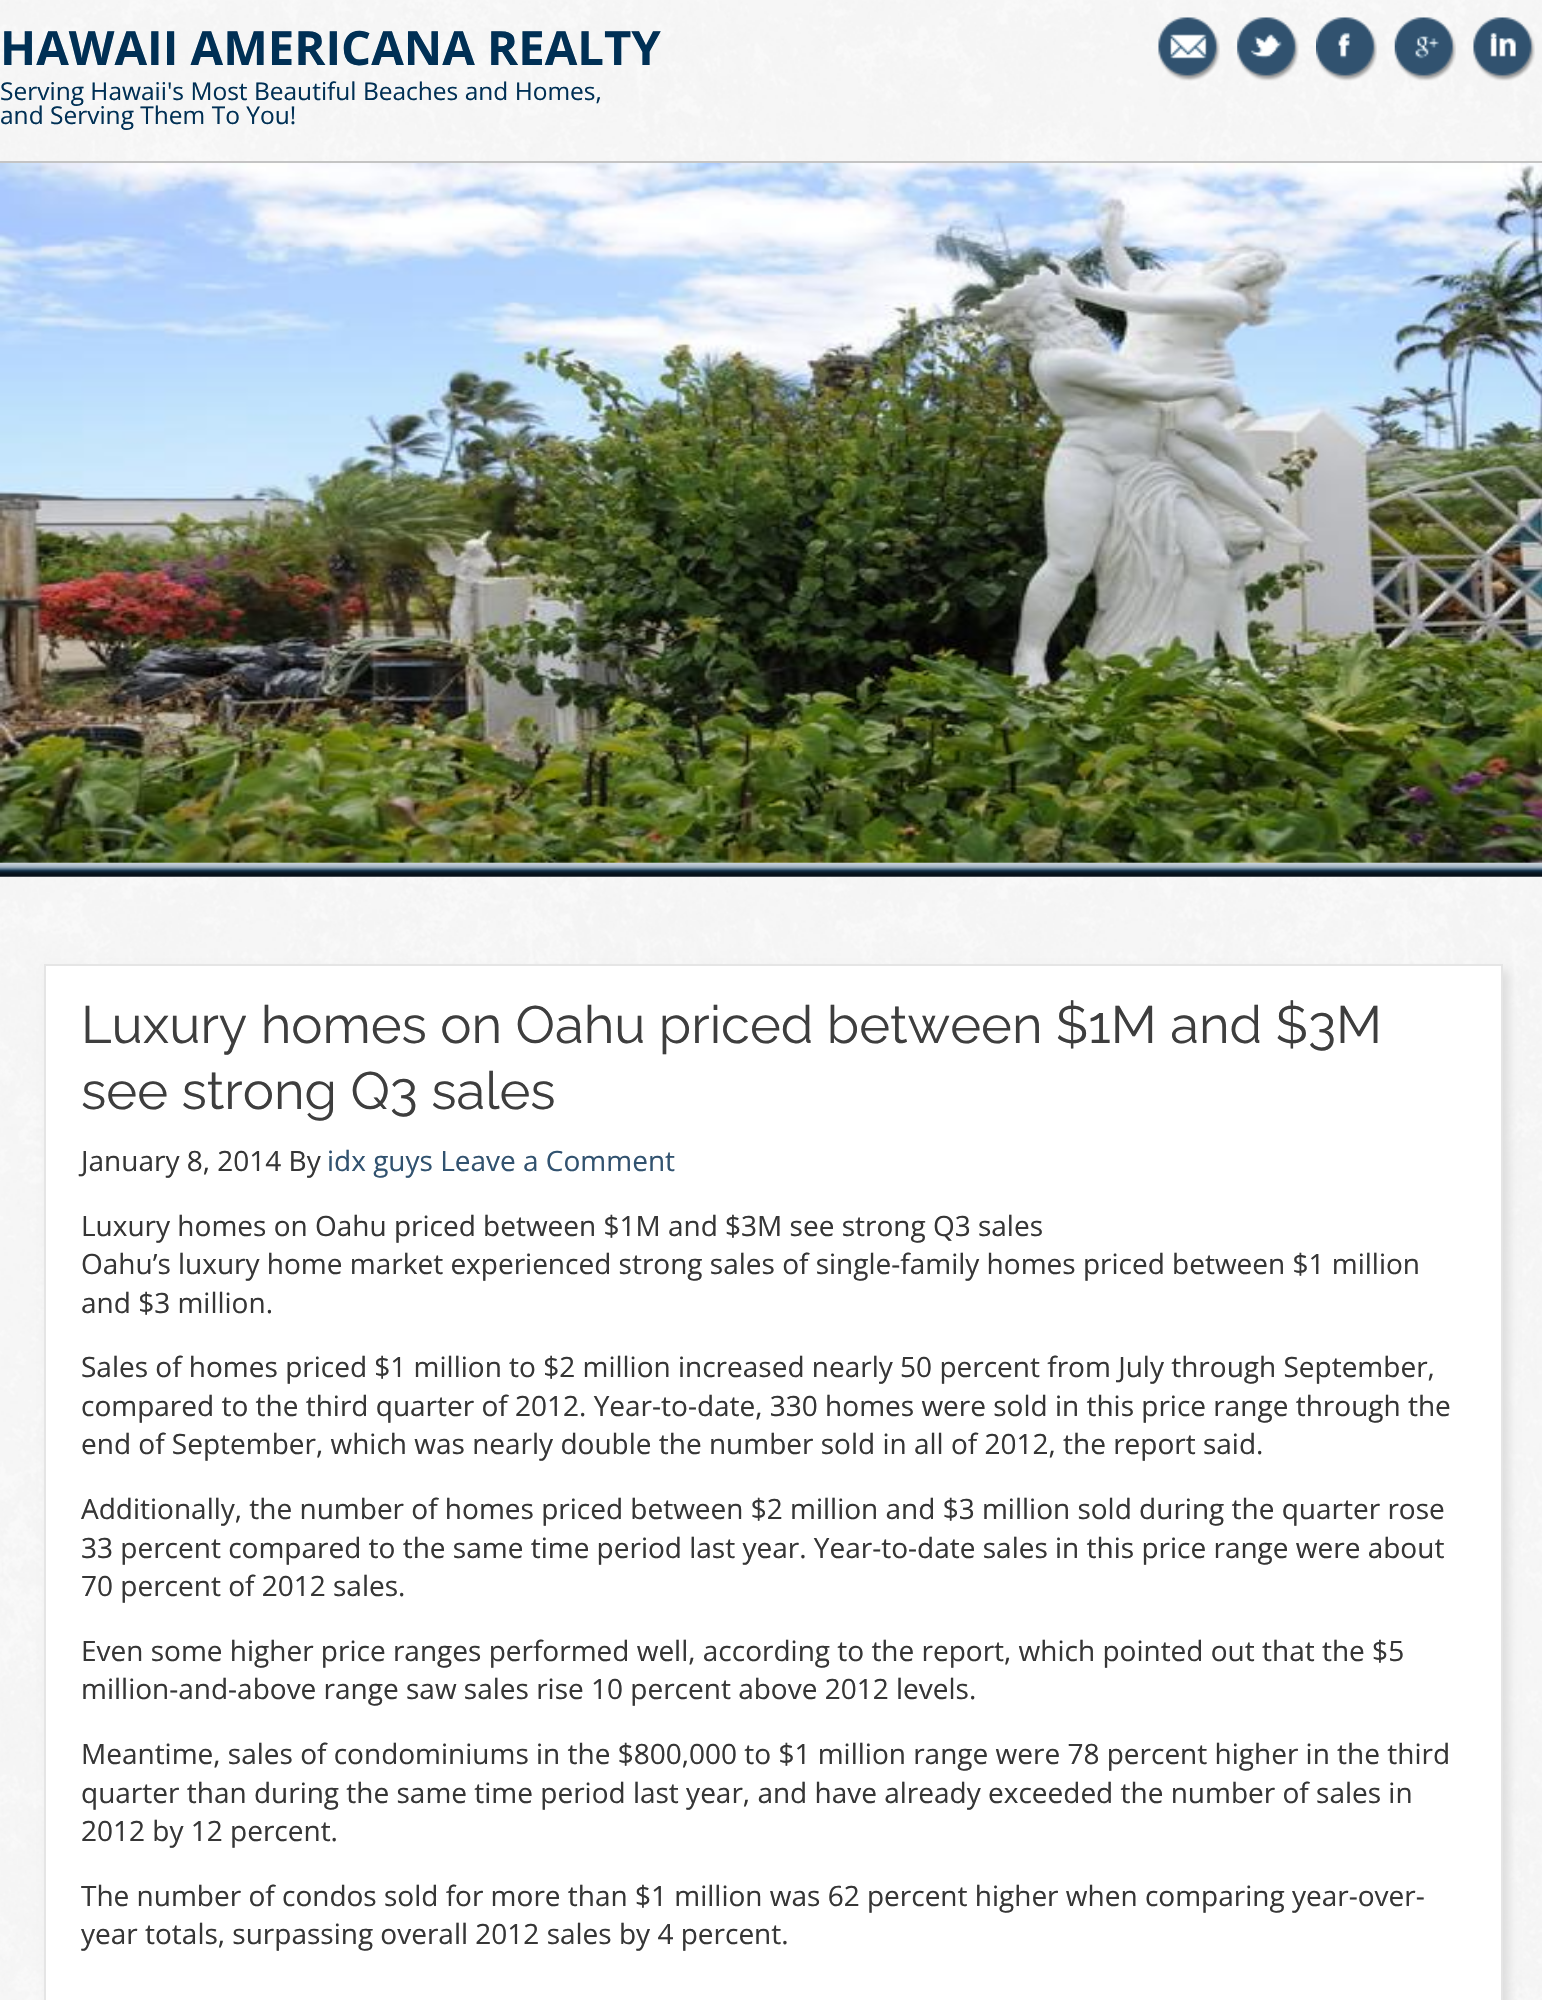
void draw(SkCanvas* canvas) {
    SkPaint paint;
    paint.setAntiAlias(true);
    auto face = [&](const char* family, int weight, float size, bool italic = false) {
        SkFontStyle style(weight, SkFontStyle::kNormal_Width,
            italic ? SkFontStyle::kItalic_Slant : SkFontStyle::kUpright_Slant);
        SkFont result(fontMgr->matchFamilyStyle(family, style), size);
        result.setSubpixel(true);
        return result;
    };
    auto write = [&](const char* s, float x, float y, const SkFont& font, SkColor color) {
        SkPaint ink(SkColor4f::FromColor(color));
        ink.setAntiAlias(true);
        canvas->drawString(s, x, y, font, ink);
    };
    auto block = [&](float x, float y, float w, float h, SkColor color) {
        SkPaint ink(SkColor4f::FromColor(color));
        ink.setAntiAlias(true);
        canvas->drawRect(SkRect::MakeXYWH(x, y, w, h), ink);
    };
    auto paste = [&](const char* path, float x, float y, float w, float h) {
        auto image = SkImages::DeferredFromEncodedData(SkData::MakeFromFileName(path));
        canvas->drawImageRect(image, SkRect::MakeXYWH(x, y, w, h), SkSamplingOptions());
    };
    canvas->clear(SK_ColorWHITE);
    paste("pic1.png", 0, 0, 1542, 2000);
    block(0, 161, 1542, 2, SkColorSetRGB(196, 196, 196));
    auto kFont1 = face("Open Sans", 700, 47.25f);
    write("HAWAII AMERICANA REALTY", 0, 65, kFont1, SkColorSetRGB(0, 48, 85));
    auto kFont2 = face("Open Sans", 400, 24.5f);
    write("Serving Hawaii's Most Beautiful Beaches and Homes,", 0, 100, kFont2, SkColorSetRGB(0, 48, 85));
    write("and Serving Them To You!", 0, 124, kFont2, SkColorSetRGB(0, 48, 85));
    paste("pic2.png", 1158, 17, 62, 64);
    paste("pic3.png", 1237, 17, 62, 64);
    paste("pic4.png", 1316, 17, 61, 64);
    paste("pic5.png", 1394, 17, 62, 64);
    paste("pic6.png", 1473, 17, 62, 64);
    paste("pic7.png", 0, 862, 1542, 15);
    paste("pic8.png", 0, 163, 1542, 700);
    paint.setColor(SkColorSetRGB(222, 222, 222));
    paint.setMaskFilter(SkMaskFilter::MakeBlur(kNormal_SkBlurStyle, 4.5f));
    canvas->drawRect(SkRect::MakeXYWH(49, 971, 1460, 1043), paint);
    paint.setMaskFilter(nullptr);
    paint.setColor(SK_ColorWHITE);
    canvas->drawRect(SkRect::MakeXYWH(45, 965, 1457, 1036), paint);
    paint.setStyle(SkPaint::kStroke_Style);
    paint.setStrokeWidth(2);
    paint.setColor(SkColorSetRGB(229, 229, 229));
    canvas->drawRect(SkRect::MakeXYWH(45, 965, 1457, 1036), paint);
    auto kFont3 = face("Raleway", 400, 52.5f);
    write("Luxury homes on Oahu priced between $1M and $3M", 81, 1043, kFont3, SkColorSetRGB(62, 62, 62));
    write("see strong Q3 sales", 81, 1109, kFont3, SkColorSetRGB(62, 62, 62));
    auto kFont4 = face("Open Sans", 400, 28);
    write("January 8, 2014 By", 81, 1171, kFont4, SkColorSetRGB(54, 54, 54));
    write("idx guys Leave a Comment", 327, 1171, kFont4, SkColorSetRGB(49, 82, 111));
    write("Luxury homes on Oahu priced between $1M and $3M see strong Q3 sales", 81, 1236, kFont4, SkColorSetRGB(54, 54, 54));
    write("Oahu’s luxury home market experienced strong sales of single-family homes priced between $1 million", 81, 1274, kFont4, SkColorSetRGB(54, 54, 54));
    write("and $3 million.", 81, 1313, kFont4, SkColorSetRGB(54, 54, 54));
    write("Sales of homes priced $1 million to $2 million increased nearly 50 percent from July through September,", 81, 1377, kFont4, SkColorSetRGB(54, 54, 54));
    write("compared to the third quarter of 2012. Year-to-date, 330 homes were sold in this price range through the", 81, 1416, kFont4, SkColorSetRGB(54, 54, 54));
    write("end of September, which was nearly double the number sold in all of 2012, the report said.", 81, 1454, kFont4, SkColorSetRGB(54, 54, 54));
    write("Additionally, the number of homes priced between $2 million and $3 million sold during the quarter rose", 81, 1519, kFont4, SkColorSetRGB(54, 54, 54));
    write("33 percent compared to the same time period last year. Year-to-date sales in this price range were about", 81, 1558, kFont4, SkColorSetRGB(54, 54, 54));
    write("70 percent of 2012 sales.", 81, 1596, kFont4, SkColorSetRGB(54, 54, 54));
    write("Even some higher price ranges performed well, according to the report, which pointed out that the $5", 81, 1661, kFont4, SkColorSetRGB(54, 54, 54));
    write("million-and-above range saw sales rise 10 percent above 2012 levels.", 81, 1699, kFont4, SkColorSetRGB(54, 54, 54));
    write("Meantime, sales of condominiums in the $800,000 to $1 million range were 78 percent higher in the third", 81, 1764, kFont4, SkColorSetRGB(54, 54, 54));
    write("quarter than during the same time period last year, and have already exceeded the number of sales in", 81, 1803, kFont4, SkColorSetRGB(54, 54, 54));
    write("2012 by 12 percent.", 81, 1841, kFont4, SkColorSetRGB(54, 54, 54));
    write("The number of condos sold for more than $1 million was 62 percent higher when comparing year-over-", 81, 1906, kFont4, SkColorSetRGB(54, 54, 54));
    canvas->save();
    canvas->clipRect(SkRect::MakeXYWH(81, 1206, 1386, 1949));
    write("year totals, surpassing overall 2012 sales by 4 percent.", 81, 1944, kFont4, SkColorSetRGB(54, 54, 54));
    canvas->restore();
}
